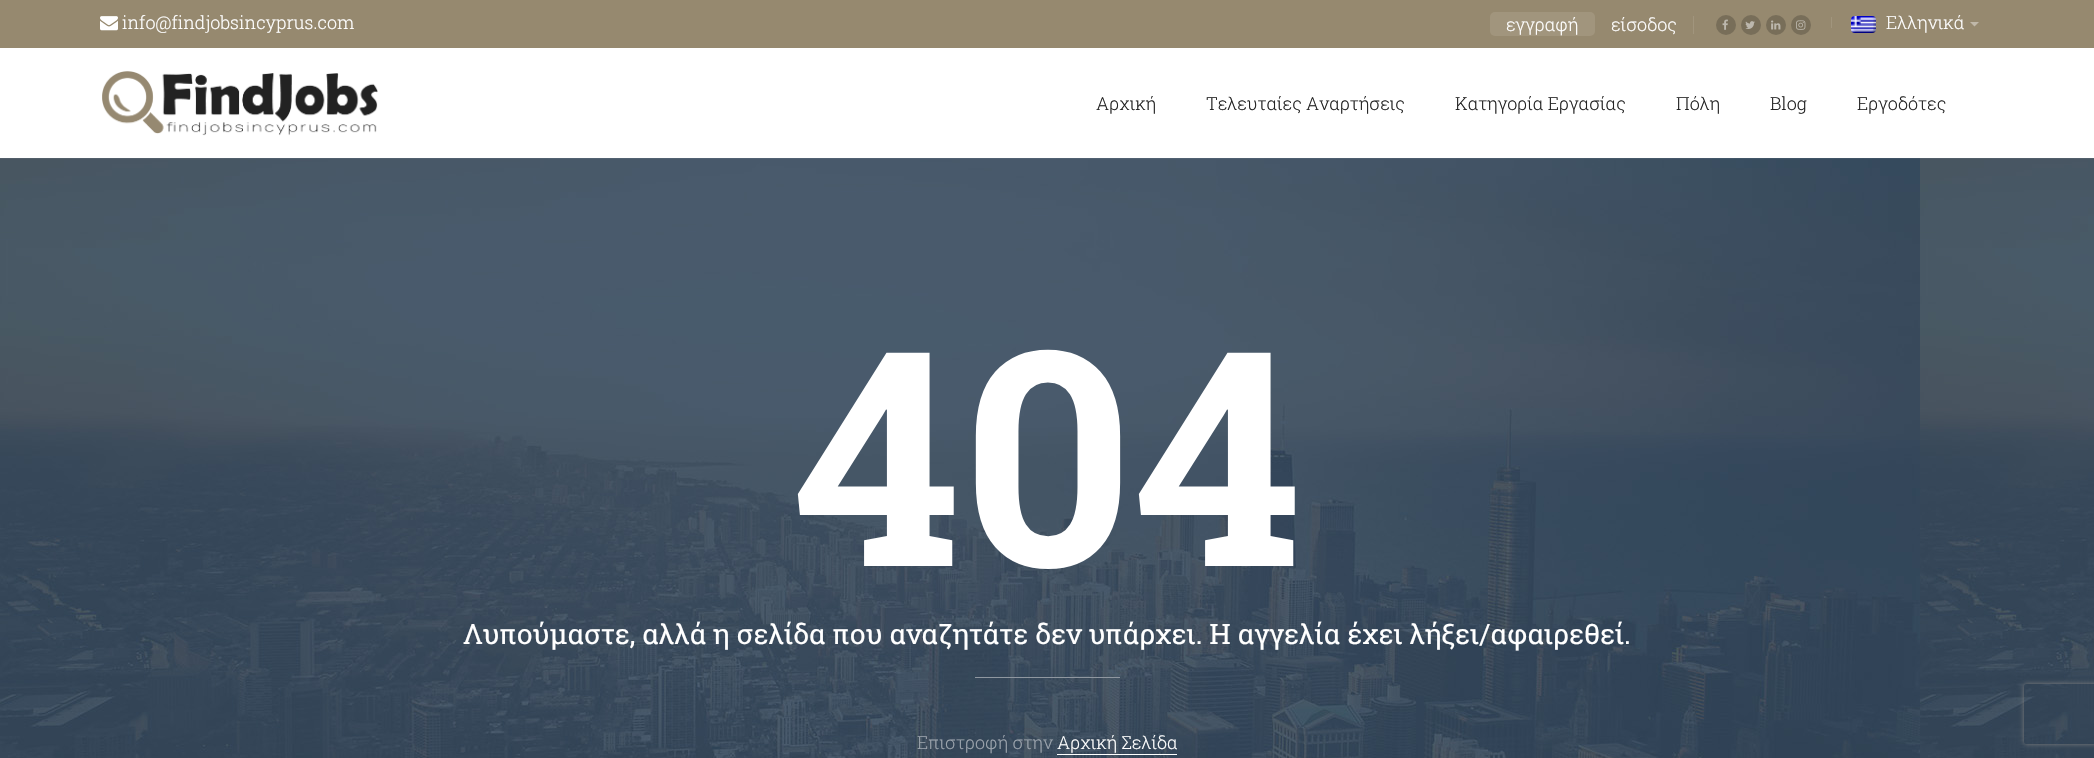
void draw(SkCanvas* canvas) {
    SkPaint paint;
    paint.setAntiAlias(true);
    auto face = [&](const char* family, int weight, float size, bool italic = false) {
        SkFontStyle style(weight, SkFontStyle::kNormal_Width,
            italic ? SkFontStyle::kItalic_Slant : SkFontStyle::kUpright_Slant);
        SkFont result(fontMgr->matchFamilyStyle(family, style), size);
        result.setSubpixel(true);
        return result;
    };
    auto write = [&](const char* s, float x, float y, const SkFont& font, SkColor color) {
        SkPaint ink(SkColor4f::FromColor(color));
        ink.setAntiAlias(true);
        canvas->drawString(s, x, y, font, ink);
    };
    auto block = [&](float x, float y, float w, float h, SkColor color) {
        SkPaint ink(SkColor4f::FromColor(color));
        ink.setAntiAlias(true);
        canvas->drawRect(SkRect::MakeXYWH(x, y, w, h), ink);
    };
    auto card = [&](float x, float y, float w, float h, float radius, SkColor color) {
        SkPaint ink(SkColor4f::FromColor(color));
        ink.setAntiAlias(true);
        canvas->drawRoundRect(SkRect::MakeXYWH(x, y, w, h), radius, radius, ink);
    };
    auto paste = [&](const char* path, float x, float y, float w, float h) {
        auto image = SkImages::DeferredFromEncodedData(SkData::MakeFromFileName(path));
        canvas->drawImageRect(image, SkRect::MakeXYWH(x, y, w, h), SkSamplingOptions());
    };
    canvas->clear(SK_ColorWHITE);
    paste("pic1.png", 0, 158, 2094, 600);
    block(0, 158, 2094, 1, SkColorSetARGB(13, 255, 255, 255));
    block(0, 0, 2094, 48, SkColorSetRGB(150, 137, 111));
    paste("pic2.png", 100, 16, 18, 15);
    auto kFont1 = face("Roboto Slab", 300, 18);
    write("info@findjobsincyprus.com", 122, 29, kFont1, SK_ColorWHITE);
    card(1490, 12, 105, 24, 5, SkColorSetRGB(161, 149, 125));
    write("εγγραφή", 1506, 31, kFont1, SK_ColorWHITE);
    write("είσοδος", 1611, 31, kFont1, SK_ColorWHITE);
    block(1693, 16, 1, 18, SkColorSetRGB(161, 149, 125));
    paint.setColor(SkColorSetRGB(120, 110, 89));
    canvas->drawCircle(1726, 25, 10, paint);
    paste("pic3.png", 1722, 19, 6, 11);
    canvas->drawCircle(1751, 25, 10, paint);
    paste("pic4.png", 1745, 21, 10, 8);
    canvas->drawCircle(1776, 25, 10, paint);
    paste("pic5.png", 1771, 20, 10, 10);
    canvas->drawCircle(1801, 25, 10, paint);
    paste("pic6.png", 1796, 20, 10, 10);
    block(1831, 17, 1, 11, SkColorSetRGB(161, 149, 125));
    paste("pic7.png", 1851, 16, 25, 17);
    write("Ελληνικά", 1886, 29, kFont1, SK_ColorWHITE);
    paint.setColor(SkColorSetRGB(192, 184, 169));
    canvas->drawPath(SkPathBuilder().moveTo(1970, 22).lineTo(1979, 22).lineTo(1974.5f, 26.5f).close().detach(), paint);
    paste("pic8.png", 102, 71, 276, 65);
    write("Αρχική", 1096, 110, kFont1, SkColorSetRGB(35, 35, 35));
    write("Τελευταίες Αναρτήσεις", 1206, 110, kFont1, SkColorSetRGB(35, 35, 35));
    write("Κατηγορία Εργασίας", 1455, 110, kFont1, SkColorSetRGB(35, 35, 35));
    write("Πόλη", 1676, 110, kFont1, SkColorSetRGB(35, 35, 35));
    write("Blog", 1770, 110, kFont1, SkColorSetRGB(35, 35, 35));
    write("Εργοδότες", 1857, 110, kFont1, SkColorSetRGB(35, 35, 35));
    auto kFont2 = face("Roboto Slab", 700, 300);
    write("404", 792, 566, kFont2, SK_ColorWHITE);
    auto kFont3 = face("Roboto Slab", 400, 28);
    write("Λυπούμαστε, αλλά η σελίδα που αναζητάτε δεν υπάρχει. Η αγγελία έχει λήξει/αφαιρεθεί.", 463, 644, kFont3, SK_ColorWHITE);
    block(975, 677, 145, 1, SkColorSetRGB(143, 151, 160));
    write("Επιστροφή στην", 917, 749, kFont1, SkColorSetRGB(156, 164, 173));
    write("Αρχική Σελίδα", 1057, 749, kFont1, SK_ColorWHITE);
    block(1057, 754, 120, 1, SK_ColorWHITE);
    canvas->save();
    canvas->clipPath(SkPathBuilder(SkPathFillType::kEvenOdd).moveTo(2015, 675).lineTo(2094, 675).lineTo(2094, 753).lineTo(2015, 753).close().moveTo(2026, 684).lineTo(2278, 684).cubicTo(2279, 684, 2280, 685, 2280, 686).lineTo(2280, 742).cubicTo(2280, 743, 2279, 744, 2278, 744).lineTo(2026, 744).cubicTo(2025, 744, 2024, 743, 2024, 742).lineTo(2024, 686).cubicTo(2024, 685, 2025, 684, 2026, 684).close().detach(), true);
    paint.setColor(SkColorSetRGB(128, 128, 128));
    paint.setMaskFilter(SkMaskFilter::MakeBlur(kNormal_SkBlurStyle, 2.5f));
    canvas->drawRoundRect(SkRect::MakeXYWH(2024, 684, 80, 60), 2, 2, paint);
    paint.setMaskFilter(nullptr);
    canvas->restore();
}
